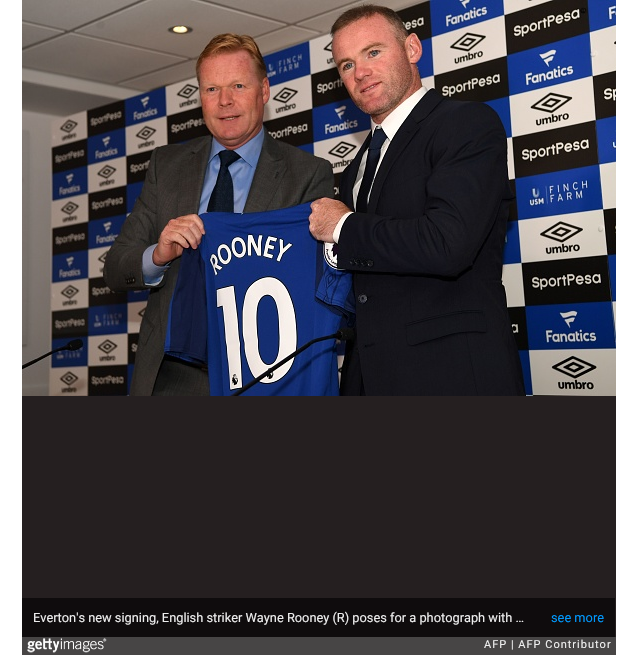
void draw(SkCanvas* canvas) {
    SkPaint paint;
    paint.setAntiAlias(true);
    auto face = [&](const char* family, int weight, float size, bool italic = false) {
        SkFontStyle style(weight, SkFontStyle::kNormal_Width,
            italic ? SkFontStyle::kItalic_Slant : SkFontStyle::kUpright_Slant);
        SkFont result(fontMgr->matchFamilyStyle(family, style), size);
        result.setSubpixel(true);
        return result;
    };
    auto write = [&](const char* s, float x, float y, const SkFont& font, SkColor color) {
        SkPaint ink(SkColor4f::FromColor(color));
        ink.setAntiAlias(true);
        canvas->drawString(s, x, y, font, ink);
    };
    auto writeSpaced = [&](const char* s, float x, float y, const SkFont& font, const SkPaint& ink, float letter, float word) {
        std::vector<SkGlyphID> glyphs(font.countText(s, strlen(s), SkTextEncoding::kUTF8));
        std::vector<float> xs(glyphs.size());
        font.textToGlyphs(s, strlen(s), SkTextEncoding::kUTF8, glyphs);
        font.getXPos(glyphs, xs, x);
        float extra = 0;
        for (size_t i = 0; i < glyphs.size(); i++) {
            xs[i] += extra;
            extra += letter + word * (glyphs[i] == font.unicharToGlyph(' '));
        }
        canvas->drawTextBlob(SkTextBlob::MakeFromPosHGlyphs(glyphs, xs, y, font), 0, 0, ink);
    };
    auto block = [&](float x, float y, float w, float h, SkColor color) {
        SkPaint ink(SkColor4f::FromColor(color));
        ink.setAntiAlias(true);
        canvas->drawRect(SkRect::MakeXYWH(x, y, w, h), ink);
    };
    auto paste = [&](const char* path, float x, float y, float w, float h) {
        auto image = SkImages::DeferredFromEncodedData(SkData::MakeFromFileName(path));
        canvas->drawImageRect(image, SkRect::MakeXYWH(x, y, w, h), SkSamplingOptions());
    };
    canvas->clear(SK_ColorWHITE);
    block(22, 396, 594, 241, SkColorSetRGB(37, 31, 32));
    paste("pic1.png", 22, 0, 594, 396);
    block(22, 598, 593, 39, SkColorSetRGB(15, 12, 13));
    auto kFont1 = face("Roboto", 400, 12.8f);
    write("Everton's new signing, English striker Wayne Rooney (R) poses for a photograph with …", 33, 622, kFont1, SkColorSetRGB(238, 238, 238));
    write("see more", 551, 622, kFont1, SkColorSetRGB(0, 153, 255));
    block(22, 637, 594, 18, SkColorSetRGB(71, 69, 69));
    paste("pic2.png", 27, 638, 80, 15);
    auto kFont2 = face("Roboto", 400, 11);
    paint.setColor(SkColorSetRGB(238, 238, 238));
    writeSpaced("AFP | AFP Contributor", 484, 648, kFont2, paint, 1, 0);
}
